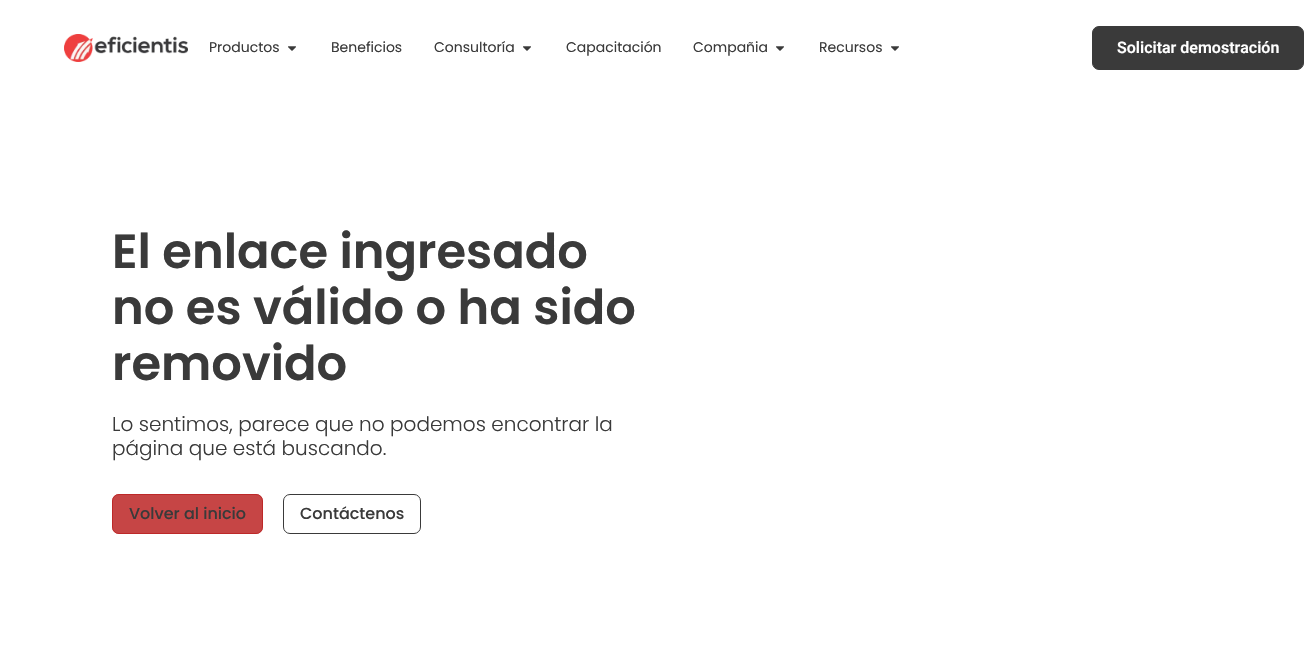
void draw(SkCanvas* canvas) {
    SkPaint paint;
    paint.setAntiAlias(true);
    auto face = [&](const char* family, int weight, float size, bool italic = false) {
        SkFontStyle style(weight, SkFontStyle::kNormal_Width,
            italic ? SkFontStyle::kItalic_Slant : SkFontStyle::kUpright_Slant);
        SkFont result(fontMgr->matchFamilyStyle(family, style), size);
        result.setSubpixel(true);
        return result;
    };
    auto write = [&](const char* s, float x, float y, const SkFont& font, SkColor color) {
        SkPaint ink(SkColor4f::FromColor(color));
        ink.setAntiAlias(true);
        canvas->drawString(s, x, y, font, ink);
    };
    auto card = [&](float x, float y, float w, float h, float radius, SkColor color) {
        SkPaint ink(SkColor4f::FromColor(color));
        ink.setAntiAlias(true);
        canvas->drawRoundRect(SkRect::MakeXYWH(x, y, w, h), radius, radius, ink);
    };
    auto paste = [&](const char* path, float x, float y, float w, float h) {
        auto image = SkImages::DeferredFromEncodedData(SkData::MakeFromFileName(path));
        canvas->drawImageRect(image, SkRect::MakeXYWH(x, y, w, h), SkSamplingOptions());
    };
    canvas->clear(SK_ColorWHITE);
    paste("pic1.png", 64, 34, 124, 28);
    auto kFont1 = face("Poppins", 400, 14);
    write("Productos", 209, 52, kFont1, SkColorSetRGB(58, 58, 58));
    paste("pic2.png", 288, 46, 8, 5);
    write("Beneficios", 331, 52, kFont1, SkColorSetRGB(58, 58, 58));
    write("Consultoría", 434, 52, kFont1, SkColorSetRGB(58, 58, 58));
    paste("pic2.png", 523, 46, 8, 5);
    write("Capacitación", 566, 52, kFont1, SkColorSetRGB(58, 58, 58));
    write("Compañia", 693, 52, kFont1, SkColorSetRGB(58, 58, 58));
    paste("pic2.png", 776, 46, 8, 5);
    write("Recursos", 819, 52, kFont1, SkColorSetRGB(58, 58, 58));
    paste("pic2.png", 891, 46, 8, 5);
    paint.setColor(SkColorSetRGB(58, 58, 58));
    canvas->drawRoundRect(SkRect::MakeXYWH(1092.5f, 26.5f, 211, 43), 6.5f, 6.5f, paint);
    paint.setStyle(SkPaint::kStroke_Style);
    paint.setStrokeWidth(1);
    canvas->drawRoundRect(SkRect::MakeXYWH(1092.5f, 26.5f, 211, 43), 6.5f, 6.5f, paint);
    auto kFont2 = face("Roboto", 600, 16);
    write("Solicitar demostración", 1117, 53, kFont2, SK_ColorWHITE);
    auto kFont3 = face("Poppins", 600, 48);
    write("El enlace ingresado", 112, 268, kFont3, SkColorSetRGB(58, 58, 58));
    write("no es válido o ha sido", 112, 324, kFont3, SkColorSetRGB(58, 58, 58));
    write("removido", 112, 380, kFont3, SkColorSetRGB(58, 58, 58));
    auto kFont4 = face("Poppins", 300, 20);
    write("Lo sentimos, parece que no podemos encontrar la", 112, 431, kFont4, SkColorSetRGB(58, 58, 58));
    write("página que está buscando.", 112, 455, kFont4, SkColorSetRGB(58, 58, 58));
    card(112, 494, 151, 40, 7, SkColorSetRGB(198, 69, 69));
    paint.setColor(SkColorSetARGB(214, 187, 34, 34));
    canvas->drawRoundRect(SkRect::MakeXYWH(112.5f, 494.5f, 150, 39), 6.5f, 6.5f, paint);
    auto kFont5 = face("Poppins", 500, 16);
    write("Volver al inicio", 129, 519, kFont5, SkColorSetRGB(58, 58, 58));
    paint.setColor(SkColorSetRGB(58, 58, 58));
    canvas->drawRoundRect(SkRect::MakeXYWH(283.5f, 494.5f, 137, 39), 6.5f, 6.5f, paint);
    write("Contáctenos", 300, 519, kFont5, SkColorSetRGB(58, 58, 58));
}
